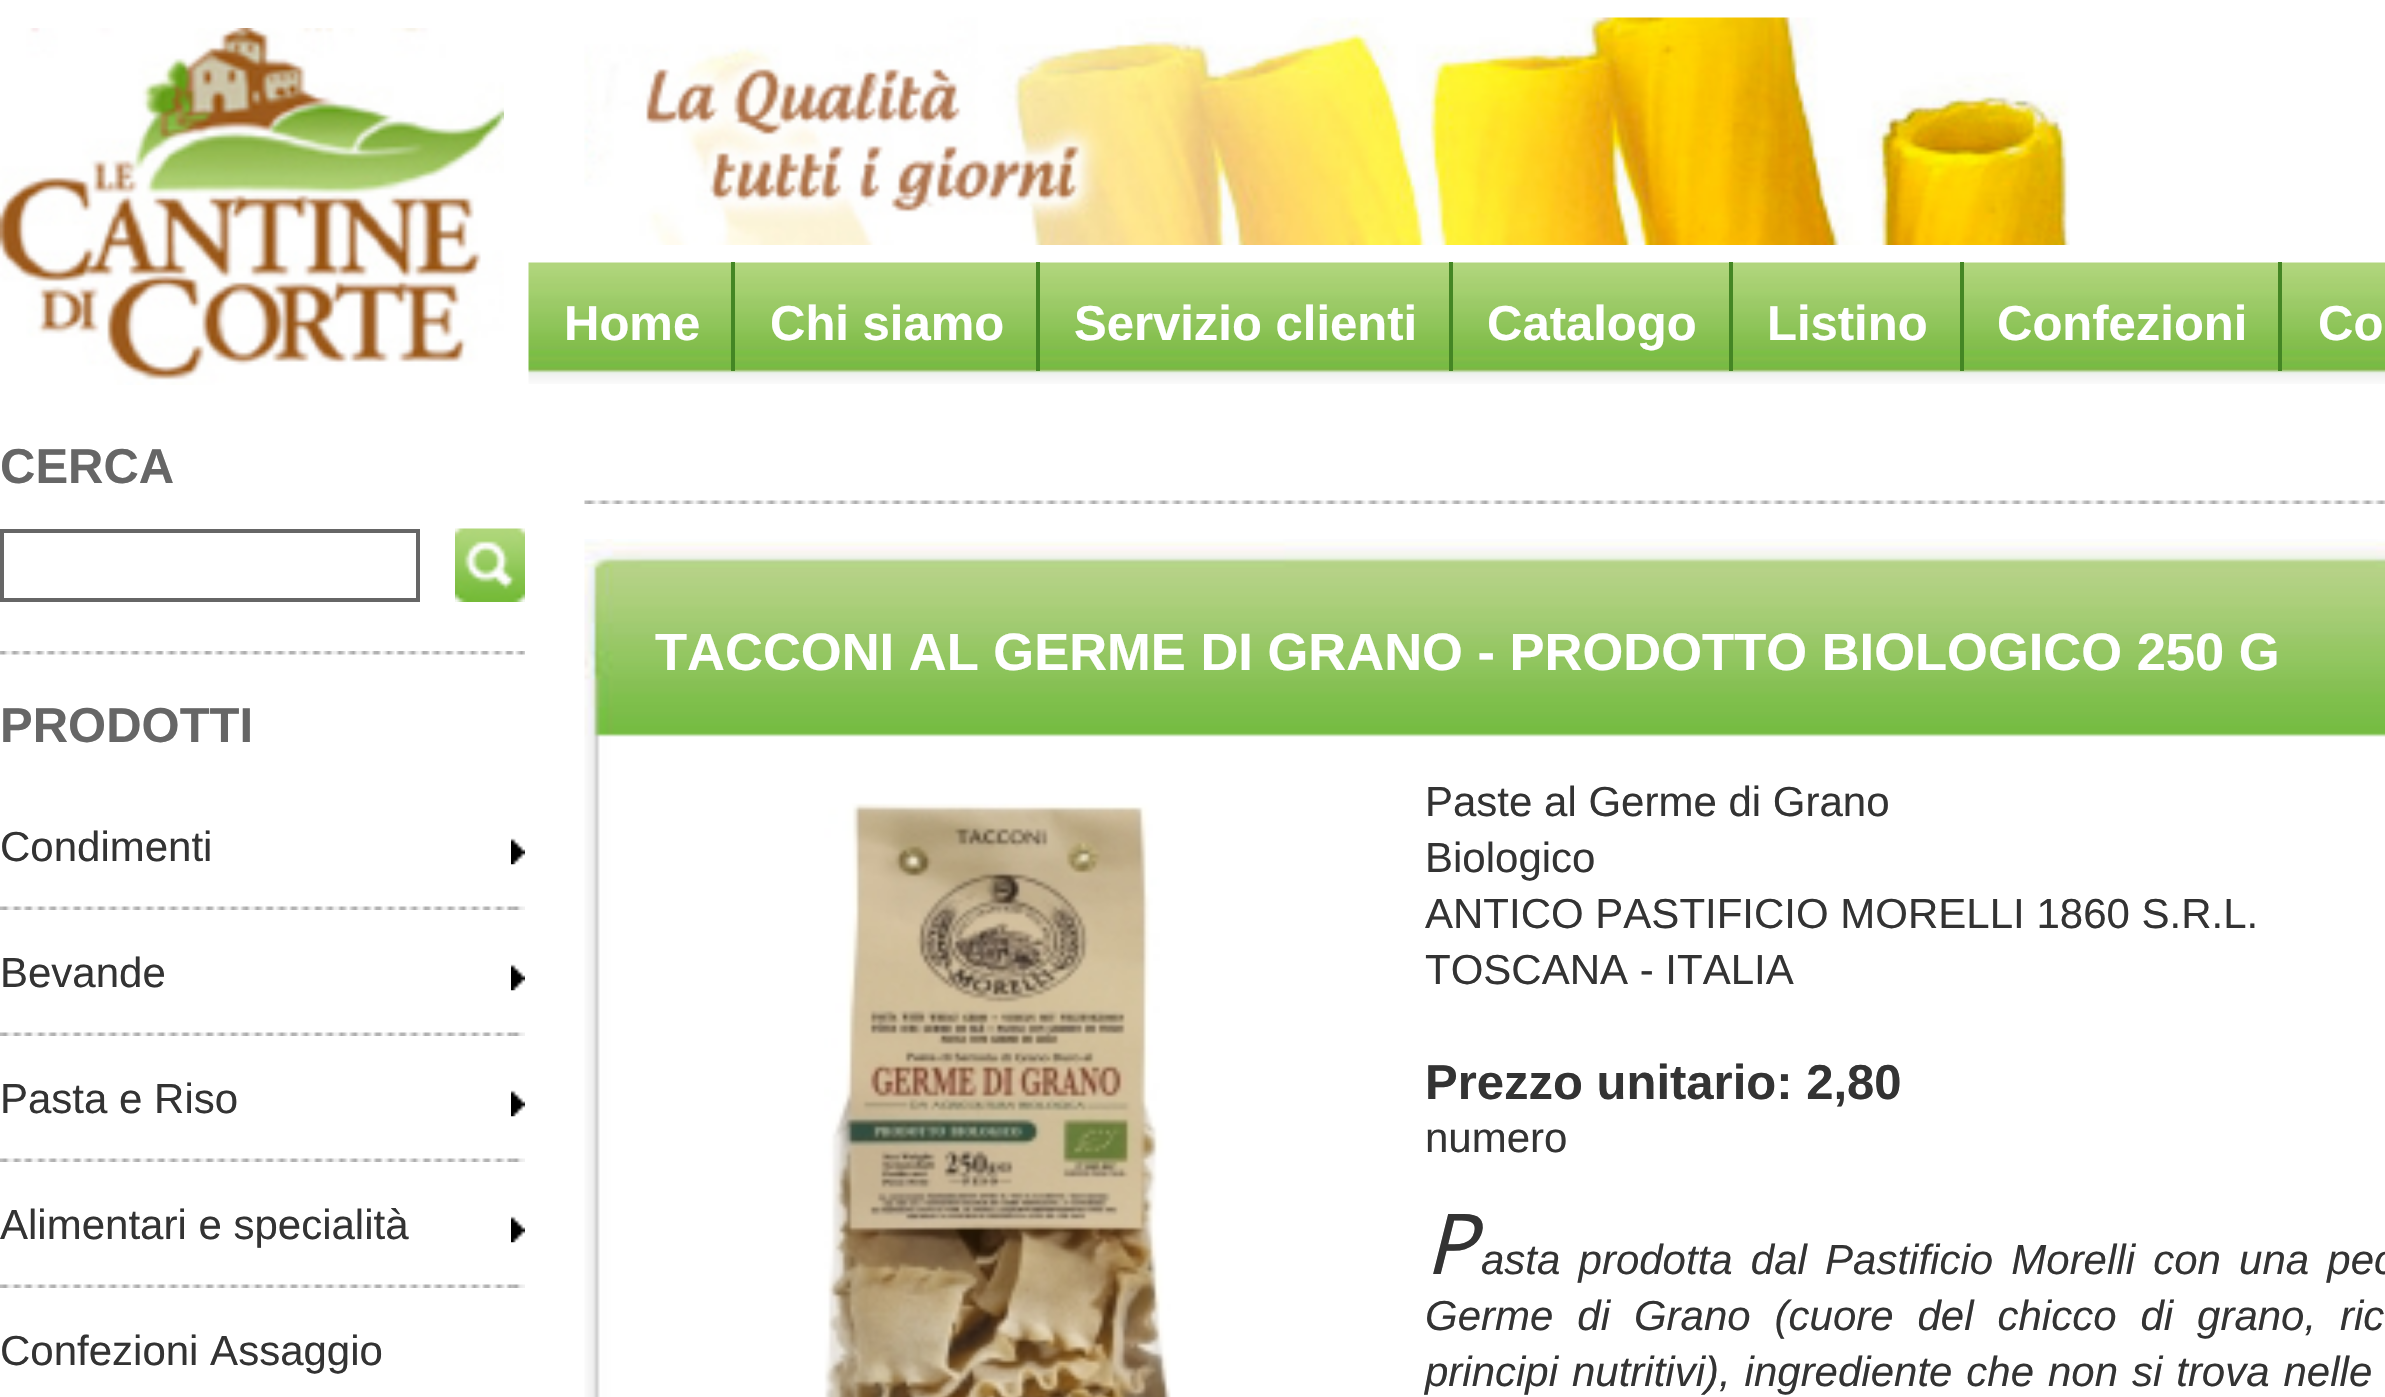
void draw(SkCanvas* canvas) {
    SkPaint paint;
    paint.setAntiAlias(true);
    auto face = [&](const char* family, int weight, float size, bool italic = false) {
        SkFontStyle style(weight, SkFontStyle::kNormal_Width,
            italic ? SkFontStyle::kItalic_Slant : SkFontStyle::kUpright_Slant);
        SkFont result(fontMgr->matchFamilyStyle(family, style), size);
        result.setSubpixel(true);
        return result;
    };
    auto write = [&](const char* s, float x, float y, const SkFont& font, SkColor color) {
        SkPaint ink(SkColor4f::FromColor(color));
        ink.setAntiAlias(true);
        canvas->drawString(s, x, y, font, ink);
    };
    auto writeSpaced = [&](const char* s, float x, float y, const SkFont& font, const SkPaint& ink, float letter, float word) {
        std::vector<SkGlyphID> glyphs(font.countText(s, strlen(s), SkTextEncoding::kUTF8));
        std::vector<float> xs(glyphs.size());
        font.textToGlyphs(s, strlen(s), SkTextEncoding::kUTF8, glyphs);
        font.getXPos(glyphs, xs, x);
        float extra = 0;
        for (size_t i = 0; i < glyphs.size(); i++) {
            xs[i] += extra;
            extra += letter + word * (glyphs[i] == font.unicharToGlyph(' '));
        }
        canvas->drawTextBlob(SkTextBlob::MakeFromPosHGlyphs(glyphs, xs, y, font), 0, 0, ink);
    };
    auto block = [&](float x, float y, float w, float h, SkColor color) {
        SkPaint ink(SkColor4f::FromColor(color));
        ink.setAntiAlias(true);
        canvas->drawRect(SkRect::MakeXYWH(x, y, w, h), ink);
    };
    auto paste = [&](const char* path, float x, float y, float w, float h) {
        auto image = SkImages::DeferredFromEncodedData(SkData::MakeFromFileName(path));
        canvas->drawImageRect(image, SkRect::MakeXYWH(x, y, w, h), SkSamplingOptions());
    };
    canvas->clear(SK_ColorWHITE);
    paste("pic1.png", 0, 28, 504, 357);
    paste("pic2.png", 584, 17, 1486, 228);
    paste("pic3.png", 528, 262, 1857, 122);
    block(731, 262, 4, 109, SkColorSetRGB(68, 134, 36));
    auto kFont1 = face("Liberation Sans", 700, 49);
    write("Home", 564, 340, kFont1, SK_ColorWHITE);
    block(1036, 262, 4, 109, SkColorSetRGB(68, 134, 36));
    write("Chi siamo", 770, 340, kFont1, SK_ColorWHITE);
    block(1449, 262, 4, 109, SkColorSetRGB(68, 134, 36));
    write("Servizio clienti", 1074, 340, kFont1, SK_ColorWHITE);
    block(1729, 262, 4, 109, SkColorSetRGB(68, 134, 36));
    write("Catalogo", 1487, 340, kFont1, SK_ColorWHITE);
    block(1960, 262, 4, 109, SkColorSetRGB(68, 134, 36));
    write("Listino", 1767, 340, kFont1, SK_ColorWHITE);
    block(2278, 262, 4, 109, SkColorSetRGB(68, 134, 36));
    write("Confezioni", 1997, 340, kFont1, SK_ColorWHITE);
    write("Co", 2318, 340, kFont1, SK_ColorWHITE);
    write("CERCA", 0, 483, kFont1, SkColorSetRGB(102, 102, 102));
    paint.setStyle(SkPaint::kStroke_Style);
    paint.setStrokeWidth(4);
    paint.setColor(SkColorSetRGB(102, 102, 102));
    canvas->drawRect(SkRect::MakeXYWH(2, 531, 416, 69), paint);
    paste("pic4.png", 455, 528, 70, 74);
    paste("pic5.png", 0, 651, 525, 4);
    write("PRODOTTI", 0, 742, kFont1, SkColorSetRGB(102, 102, 102));
    paste("pic6.png", 0, 906, 511, 4);
    auto kFont2 = face("Liberation Sans", 400, 42);
    write("Condimenti", 0, 861, kFont2, SkColorSetRGB(51, 51, 51));
    paste("pic7.png", 511, 906, 14, 4);
    paste("pic8.png", 511, 838, 14, 27);
    paste("pic6.png", 0, 1032, 511, 4);
    write("Bevande", 0, 987, kFont2, SkColorSetRGB(51, 51, 51));
    paste("pic7.png", 511, 1032, 14, 4);
    paste("pic8.png", 511, 964, 14, 27);
    paste("pic6.png", 0, 1158, 511, 4);
    write("Pasta e Riso", 0, 1113, kFont2, SkColorSetRGB(51, 51, 51));
    paste("pic7.png", 511, 1158, 14, 4);
    paste("pic8.png", 511, 1090, 14, 27);
    paste("pic6.png", 0, 1284, 511, 4);
    write("Alimentari e specialità", 0, 1239, kFont2, SkColorSetRGB(51, 51, 51));
    paste("pic7.png", 511, 1284, 14, 4);
    paste("pic8.png", 511, 1216, 14, 27);
    write("Confezioni Assaggio", 0, 1365, kFont2, SkColorSetRGB(51, 51, 51));
    paste("pic9.png", 584, 500, 1801, 4);
    paste("pic10.png", 584, 539, 1801, 858);
    auto kFont3 = face("Liberation Sans", 700, 52.5f);
    write("TACCONI AL GERME DI GRANO - PRODOTTO BIOLOGICO 250 G", 655, 670, kFont3, SK_ColorWHITE);
    paste("pic11.png", 824, 803, 347, 594);
    write("Paste al Germe di Grano", 1425, 816, kFont2, SkColorSetRGB(51, 51, 51));
    write("Biologico", 1425, 872, kFont2, SkColorSetRGB(51, 51, 51));
    write("ANTICO PASTIFICIO MORELLI 1860 S.R.L.", 1425, 928, kFont2, SkColorSetRGB(51, 51, 51));
    write("TOSCANA - ITALIA", 1425, 984, kFont2, SkColorSetRGB(51, 51, 51));
    write("Prezzo unitario: 2,80", 1425, 1099, kFont1, SkColorSetRGB(51, 51, 51));
    write("numero", 1425, 1152, kFont2, SkColorSetRGB(51, 51, 51));
    auto kFont4 = face("Noto Sans", 400, 84, true);
    write("P", 1425, 1274, kFont4, SkColorSetRGB(51, 51, 51));
    auto kFont5 = face("Liberation Sans", 400, 42, true);
    paint.setStyle(SkPaint::kFill_Style);
    paint.setColor(SkColorSetRGB(51, 51, 51));
    writeSpaced("asta prodotta dal Pastificio Morelli con una pec", 1481, 1274, kFont5, paint, 0, 6.5f);
    writeSpaced("Germe di Grano (cuore del chicco di grano, ric", 1425, 1330, kFont5, paint, 0, 12.25f);
    writeSpaced("principi nutritivi), ingrediente che non si trova nelle", 1425, 1386, kFont5, paint, 0, 2.25f);
}
